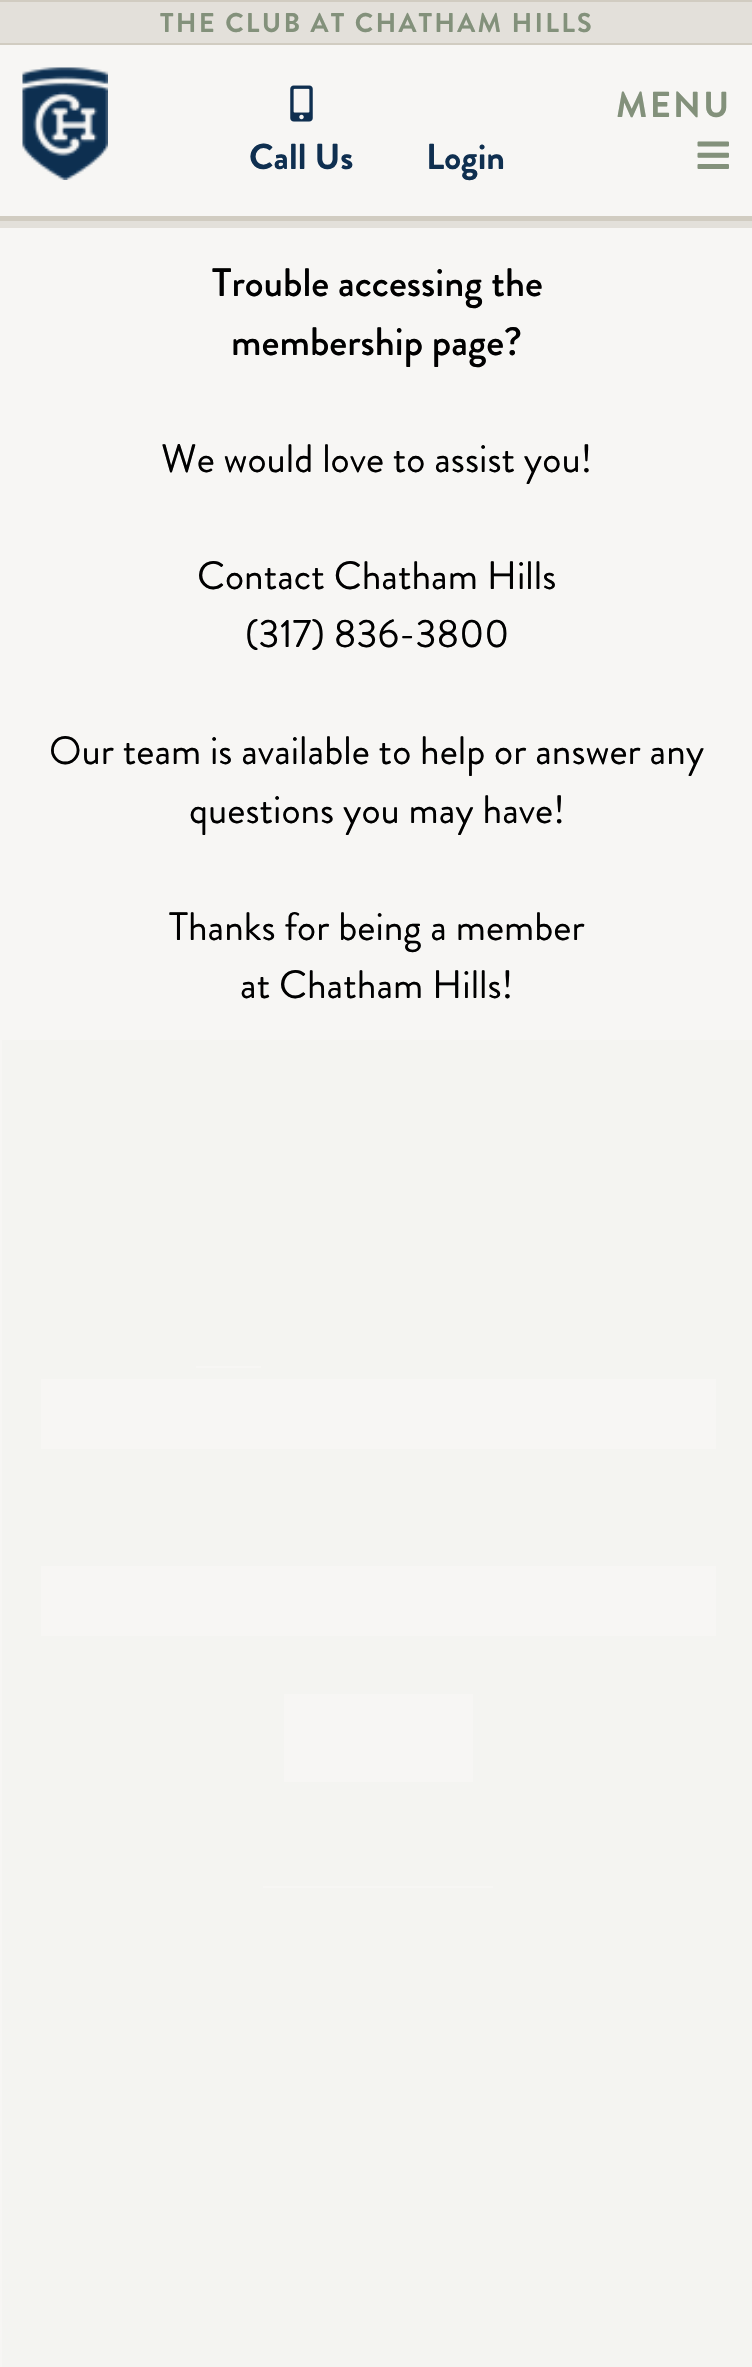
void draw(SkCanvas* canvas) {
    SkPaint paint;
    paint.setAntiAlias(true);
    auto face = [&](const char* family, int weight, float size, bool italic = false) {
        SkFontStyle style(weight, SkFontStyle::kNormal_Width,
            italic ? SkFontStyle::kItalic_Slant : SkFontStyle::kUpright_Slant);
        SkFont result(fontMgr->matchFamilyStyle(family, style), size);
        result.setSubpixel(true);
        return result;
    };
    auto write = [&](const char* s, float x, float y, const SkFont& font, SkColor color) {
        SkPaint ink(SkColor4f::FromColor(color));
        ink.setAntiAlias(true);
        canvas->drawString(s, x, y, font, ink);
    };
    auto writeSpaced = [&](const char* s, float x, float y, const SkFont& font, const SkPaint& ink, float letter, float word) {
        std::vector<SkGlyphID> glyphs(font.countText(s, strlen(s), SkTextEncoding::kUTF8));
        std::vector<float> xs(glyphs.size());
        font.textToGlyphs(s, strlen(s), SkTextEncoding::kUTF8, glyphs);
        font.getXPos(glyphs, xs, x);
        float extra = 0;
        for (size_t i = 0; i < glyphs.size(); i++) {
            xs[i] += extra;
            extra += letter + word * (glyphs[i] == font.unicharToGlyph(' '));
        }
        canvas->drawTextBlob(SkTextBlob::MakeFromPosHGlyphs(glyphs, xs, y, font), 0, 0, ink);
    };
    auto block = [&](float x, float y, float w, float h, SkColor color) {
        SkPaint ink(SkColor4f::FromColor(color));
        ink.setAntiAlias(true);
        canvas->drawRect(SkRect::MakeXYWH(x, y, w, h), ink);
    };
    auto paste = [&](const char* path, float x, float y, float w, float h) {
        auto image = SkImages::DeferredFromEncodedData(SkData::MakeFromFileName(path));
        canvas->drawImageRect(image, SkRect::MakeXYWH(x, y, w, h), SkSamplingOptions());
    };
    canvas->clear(SkColorSetRGB(227, 224, 218));
    block(0, 0, 752, 2, SkColorSetRGB(209, 204, 193));
    block(0, 43, 752, 2, SkColorSetRGB(209, 204, 193));
    auto kFont1 = face("Brandon Grotesque", 700, 27);
    paint.setColor(SkColorSetRGB(131, 145, 123));
    writeSpaced("THE CLUB AT CHATHAM HILLS", 160, 32, kFont1, paint, 2.25f, 0);
    block(0, 45, 752, 171, SkColorSetRGB(247, 246, 244));
    block(0, 216, 752, 5, SkColorSetRGB(209, 204, 193));
    paste("pic1.png", 22, 67, 86, 113);
    auto kFont2 = face("Brandon Grotesque", 700, 36);
    writeSpaced("MENU", 616, 117, kFont2, paint, 2.25f, 0);
    paste("pic2.png", 697, 141, 32, 28);
    paste("pic3.png", 290, 85, 23, 37);
    write("Call Us", 249, 169, kFont2, SkColorSetRGB(15, 47, 80));
    write("Login", 426, 169, kFont2, SkColorSetRGB(15, 47, 80));
    block(0, 228, 752, 812, SkColorSetRGB(247, 246, 244));
    auto kFont3 = face("Brandon Grotesque", 500, 39.6f);
    write("Trouble accessing the", 212, 296, kFont3, SK_ColorBLACK);
    write("membership page?", 231, 355, kFont3, SK_ColorBLACK);
    auto kFont4 = face("Brandon Grotesque", 400, 39.6f);
    write("We would love to assist you!", 161, 472, kFont4, SK_ColorBLACK);
    write("Contact Chatham Hills", 197, 589, kFont4, SK_ColorBLACK);
    write("(317) 836-3800", 245, 647, kFont4, SK_ColorBLACK);
    write("Our team is available to help or answer any", 49, 764, kFont4, SK_ColorBLACK);
    write("questions you may have!", 189, 823, kFont4, SK_ColorBLACK);
    write("Thanks for being a member", 169, 940, kFont4, SK_ColorBLACK);
    write("at Chatham Hills!", 240, 998, kFont4, SK_ColorBLACK);
    block(2, 1040, 750, 1327, SkColorSetRGB(244, 244, 241));
    block(0, 1040, 2, 1327, SkColorSetRGB(247, 246, 244));
    block(196, 1366, 65, 2, SkColorSetRGB(247, 246, 244));
    block(41, 1379, 675, 70, SkColorSetRGB(247, 246, 244));
    block(41, 1566, 675, 70, SkColorSetRGB(247, 246, 244));
    block(284, 1694, 189, 88, SkColorSetRGB(247, 246, 244));
    block(263, 1886, 230, 2, SkColorSetRGB(247, 246, 244));
}
